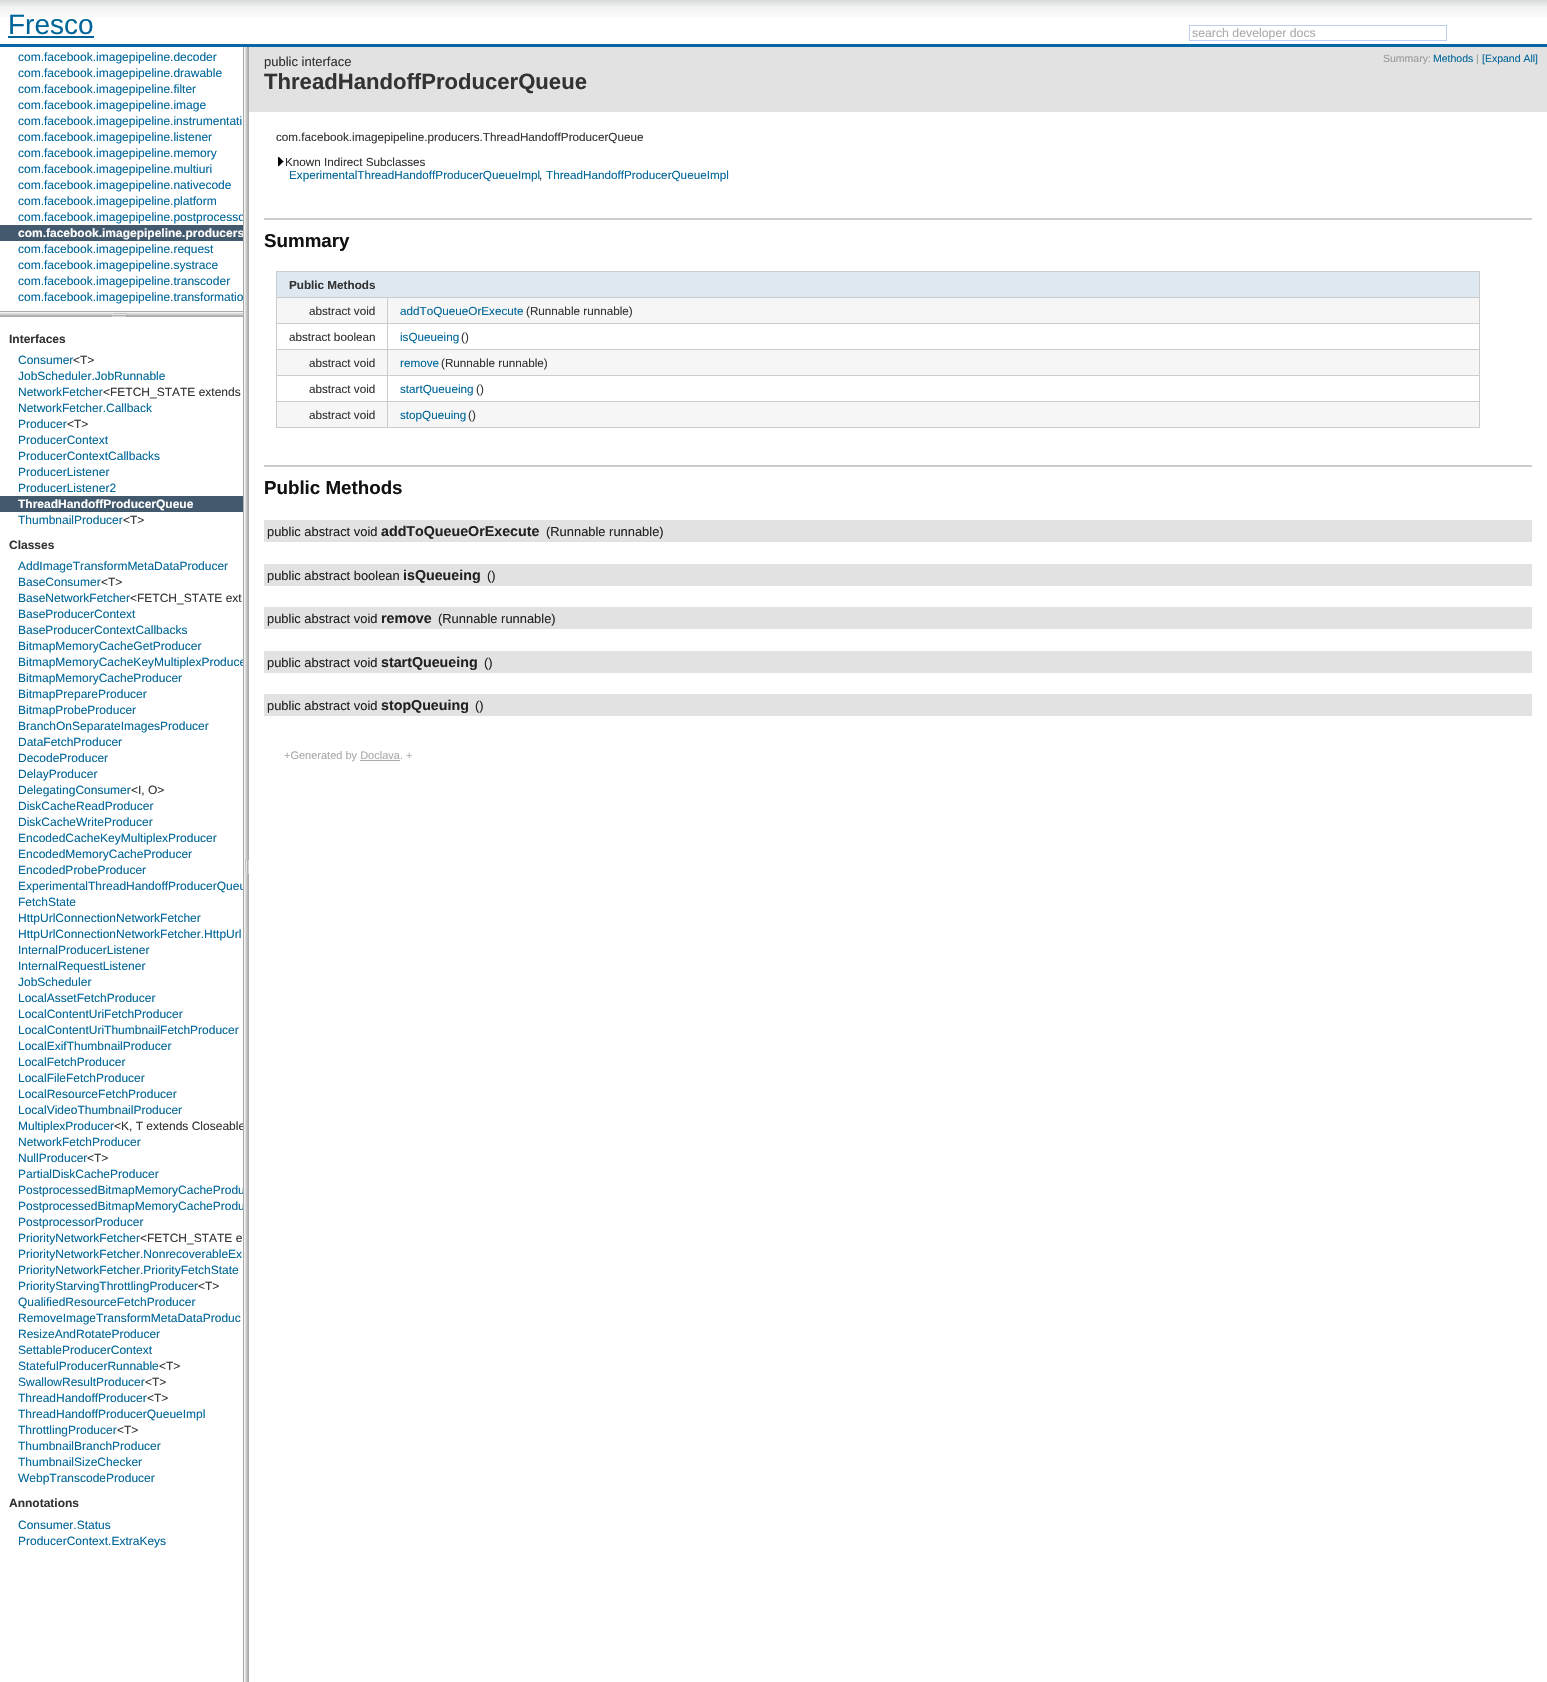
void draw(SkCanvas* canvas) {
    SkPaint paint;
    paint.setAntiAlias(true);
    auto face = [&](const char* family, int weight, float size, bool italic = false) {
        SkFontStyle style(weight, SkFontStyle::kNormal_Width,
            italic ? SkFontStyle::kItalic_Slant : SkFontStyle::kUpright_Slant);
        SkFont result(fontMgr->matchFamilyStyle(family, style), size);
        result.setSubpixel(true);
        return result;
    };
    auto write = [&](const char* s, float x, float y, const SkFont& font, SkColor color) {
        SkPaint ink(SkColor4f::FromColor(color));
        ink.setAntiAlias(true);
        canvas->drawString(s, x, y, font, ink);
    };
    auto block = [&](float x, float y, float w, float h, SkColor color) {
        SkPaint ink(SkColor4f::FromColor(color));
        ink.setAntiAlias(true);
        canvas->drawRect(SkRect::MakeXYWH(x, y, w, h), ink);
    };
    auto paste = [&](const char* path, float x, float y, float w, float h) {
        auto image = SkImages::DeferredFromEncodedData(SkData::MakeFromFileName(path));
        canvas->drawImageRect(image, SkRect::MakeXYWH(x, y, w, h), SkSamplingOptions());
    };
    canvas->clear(SK_ColorWHITE);
    paste("pic1.png", 0, 0, 1547, 17);
    block(0, 44, 1547, 3, SkColorSetRGB(7, 103, 164));
    auto kFont1 = face("Liberation Sans", 400, 28);
    write("Fresco", 8, 34, kFont1, SkColorSetRGB(0, 102, 153));
    block(8, 36, 86, 2, SkColorSetRGB(0, 102, 153));
    paint.setStyle(SkPaint::kStroke_Style);
    paint.setStrokeWidth(1);
    paint.setColor(SkColorSetRGB(188, 205, 240));
    canvas->drawRect(SkRect::MakeXYWH(1189.5f, 25.5f, 257, 15), paint);
    auto kFont2 = face("Liberation Sans", 400, 12.3f);
    write("search developer docs", 1192, 37, kFont2, SkColorSetRGB(170, 170, 170));
    auto kFont3 = face("Liberation Sans", 400, 12);
    write("com.facebook.imagepipeline.decoder", 18, 61, kFont3, SkColorSetRGB(0, 102, 153));
    write("com.facebook.imagepipeline.drawable", 18, 77, kFont3, SkColorSetRGB(0, 102, 153));
    write("com.facebook.imagepipeline.filter", 18, 93, kFont3, SkColorSetRGB(0, 102, 153));
    write("com.facebook.imagepipeline.image", 18, 109, kFont3, SkColorSetRGB(0, 102, 153));
    write("com.facebook.imagepipeline.instrumentati", 18, 125, kFont3, SkColorSetRGB(0, 102, 153));
    write("com.facebook.imagepipeline.listener", 18, 141, kFont3, SkColorSetRGB(0, 102, 153));
    write("com.facebook.imagepipeline.memory", 18, 157, kFont3, SkColorSetRGB(0, 102, 153));
    write("com.facebook.imagepipeline.multiuri", 18, 173, kFont3, SkColorSetRGB(0, 102, 153));
    write("com.facebook.imagepipeline.nativecode", 18, 189, kFont3, SkColorSetRGB(0, 102, 153));
    write("com.facebook.imagepipeline.platform", 18, 205, kFont3, SkColorSetRGB(0, 102, 153));
    write("com.facebook.imagepipeline.postprocesso", 18, 221, kFont3, SkColorSetRGB(0, 102, 153));
    block(0, 225, 243, 16, SkColorSetRGB(67, 90, 110));
    auto kFont4 = face("Liberation Sans", 700, 12);
    write("com.facebook.imagepipeline.producers", 18, 237, kFont4, SK_ColorWHITE);
    write("com.facebook.imagepipeline.request", 18, 253, kFont3, SkColorSetRGB(0, 102, 153));
    write("com.facebook.imagepipeline.systrace", 18, 269, kFont3, SkColorSetRGB(0, 102, 153));
    write("com.facebook.imagepipeline.transcoder", 18, 285, kFont3, SkColorSetRGB(0, 102, 153));
    write("com.facebook.imagepipeline.transformatio", 18, 301, kFont3, SkColorSetRGB(0, 102, 153));
    paste("pic2.png", 0, 311, 243, 6);
    write("Interfaces", 9, 343, kFont4, SkColorSetRGB(51, 51, 51));
    write("Consumer", 18, 364, kFont3, SkColorSetRGB(0, 102, 153));
    write("<T>", 73, 364, kFont3, SkColorSetRGB(51, 51, 51));
    write("JobScheduler.JobRunnable", 18, 380, kFont3, SkColorSetRGB(0, 102, 153));
    write("NetworkFetcher", 18, 396, kFont3, SkColorSetRGB(0, 102, 153));
    write("<FETCH_STATE extends", 103, 396, kFont3, SkColorSetRGB(51, 51, 51));
    write("NetworkFetcher.Callback", 18, 412, kFont3, SkColorSetRGB(0, 102, 153));
    write("Producer", 18, 428, kFont3, SkColorSetRGB(0, 102, 153));
    write("<T>", 67, 428, kFont3, SkColorSetRGB(51, 51, 51));
    write("ProducerContext", 18, 444, kFont3, SkColorSetRGB(0, 102, 153));
    write("ProducerContextCallbacks", 18, 460, kFont3, SkColorSetRGB(0, 102, 153));
    write("ProducerListener", 18, 476, kFont3, SkColorSetRGB(0, 102, 153));
    write("ProducerListener2", 18, 492, kFont3, SkColorSetRGB(0, 102, 153));
    block(0, 496, 243, 16, SkColorSetRGB(67, 90, 110));
    write("ThreadHandoffProducerQueue", 18, 508, kFont4, SK_ColorWHITE);
    write("ThumbnailProducer", 18, 524, kFont3, SkColorSetRGB(0, 102, 153));
    write("<T>", 123, 524, kFont3, SkColorSetRGB(51, 51, 51));
    write("Classes", 9, 549, kFont4, SkColorSetRGB(51, 51, 51));
    write("AddImageTransformMetaDataProducer", 18, 570, kFont3, SkColorSetRGB(0, 102, 153));
    write("BaseConsumer", 18, 586, kFont3, SkColorSetRGB(0, 102, 153));
    write("<T>", 101, 586, kFont3, SkColorSetRGB(51, 51, 51));
    write("BaseNetworkFetcher", 18, 602, kFont3, SkColorSetRGB(0, 102, 153));
    write("<FETCH_STATE ext", 130, 602, kFont3, SkColorSetRGB(51, 51, 51));
    write("BaseProducerContext", 18, 618, kFont3, SkColorSetRGB(0, 102, 153));
    write("BaseProducerContextCallbacks", 18, 634, kFont3, SkColorSetRGB(0, 102, 153));
    write("BitmapMemoryCacheGetProducer", 18, 650, kFont3, SkColorSetRGB(0, 102, 153));
    write("BitmapMemoryCacheKeyMultiplexProduce", 18, 666, kFont3, SkColorSetRGB(0, 102, 153));
    write("BitmapMemoryCacheProducer", 18, 682, kFont3, SkColorSetRGB(0, 102, 153));
    write("BitmapPrepareProducer", 18, 698, kFont3, SkColorSetRGB(0, 102, 153));
    write("BitmapProbeProducer", 18, 714, kFont3, SkColorSetRGB(0, 102, 153));
    write("BranchOnSeparateImagesProducer", 18, 730, kFont3, SkColorSetRGB(0, 102, 153));
    write("DataFetchProducer", 18, 746, kFont3, SkColorSetRGB(0, 102, 153));
    write("DecodeProducer", 18, 762, kFont3, SkColorSetRGB(0, 102, 153));
    write("DelayProducer", 18, 778, kFont3, SkColorSetRGB(0, 102, 153));
    write("DelegatingConsumer", 18, 794, kFont3, SkColorSetRGB(0, 102, 153));
    write("<I, O>", 131, 794, kFont3, SkColorSetRGB(51, 51, 51));
    write("DiskCacheReadProducer", 18, 810, kFont3, SkColorSetRGB(0, 102, 153));
    write("DiskCacheWriteProducer", 18, 826, kFont3, SkColorSetRGB(0, 102, 153));
    write("EncodedCacheKeyMultiplexProducer", 18, 842, kFont3, SkColorSetRGB(0, 102, 153));
    write("EncodedMemoryCacheProducer", 18, 858, kFont3, SkColorSetRGB(0, 102, 153));
    write("EncodedProbeProducer", 18, 874, kFont3, SkColorSetRGB(0, 102, 153));
    write("ExperimentalThreadHandoffProducerQueu", 18, 890, kFont3, SkColorSetRGB(0, 102, 153));
    write("FetchState", 18, 906, kFont3, SkColorSetRGB(0, 102, 153));
    write("HttpUrlConnectionNetworkFetcher", 18, 922, kFont3, SkColorSetRGB(0, 102, 153));
    write("HttpUrlConnectionNetworkFetcher.HttpUrl", 18, 938, kFont3, SkColorSetRGB(0, 102, 153));
    write("InternalProducerListener", 18, 954, kFont3, SkColorSetRGB(0, 102, 153));
    write("InternalRequestListener", 18, 970, kFont3, SkColorSetRGB(0, 102, 153));
    write("JobScheduler", 18, 986, kFont3, SkColorSetRGB(0, 102, 153));
    write("LocalAssetFetchProducer", 18, 1002, kFont3, SkColorSetRGB(0, 102, 153));
    write("LocalContentUriFetchProducer", 18, 1018, kFont3, SkColorSetRGB(0, 102, 153));
    write("LocalContentUriThumbnailFetchProducer", 18, 1034, kFont3, SkColorSetRGB(0, 102, 153));
    write("LocalExifThumbnailProducer", 18, 1050, kFont3, SkColorSetRGB(0, 102, 153));
    write("LocalFetchProducer", 18, 1066, kFont3, SkColorSetRGB(0, 102, 153));
    write("LocalFileFetchProducer", 18, 1082, kFont3, SkColorSetRGB(0, 102, 153));
    write("LocalResourceFetchProducer", 18, 1098, kFont3, SkColorSetRGB(0, 102, 153));
    write("LocalVideoThumbnailProducer", 18, 1114, kFont3, SkColorSetRGB(0, 102, 153));
    write("MultiplexProducer", 18, 1130, kFont3, SkColorSetRGB(0, 102, 153));
    write("<K, T extends Closeable", 114, 1130, kFont3, SkColorSetRGB(51, 51, 51));
    write("NetworkFetchProducer", 18, 1146, kFont3, SkColorSetRGB(0, 102, 153));
    write("NullProducer", 18, 1162, kFont3, SkColorSetRGB(0, 102, 153));
    write("<T>", 87, 1162, kFont3, SkColorSetRGB(51, 51, 51));
    write("PartialDiskCacheProducer", 18, 1178, kFont3, SkColorSetRGB(0, 102, 153));
    write("PostprocessedBitmapMemoryCacheProdu", 18, 1194, kFont3, SkColorSetRGB(0, 102, 153));
    write("PostprocessedBitmapMemoryCacheProdu", 18, 1210, kFont3, SkColorSetRGB(0, 102, 153));
    write("PostprocessorProducer", 18, 1226, kFont3, SkColorSetRGB(0, 102, 153));
    write("PriorityNetworkFetcher", 18, 1242, kFont3, SkColorSetRGB(0, 102, 153));
    write("<FETCH_STATE e", 140, 1242, kFont3, SkColorSetRGB(51, 51, 51));
    write("PriorityNetworkFetcher.NonrecoverableEx", 18, 1258, kFont3, SkColorSetRGB(0, 102, 153));
    write("PriorityNetworkFetcher.PriorityFetchState", 18, 1274, kFont3, SkColorSetRGB(0, 102, 153));
    write("PriorityStarvingThrottlingProducer", 18, 1290, kFont3, SkColorSetRGB(0, 102, 153));
    write("<T>", 198, 1290, kFont3, SkColorSetRGB(51, 51, 51));
    write("QualifiedResourceFetchProducer", 18, 1306, kFont3, SkColorSetRGB(0, 102, 153));
    write("RemoveImageTransformMetaDataProduc", 18, 1322, kFont3, SkColorSetRGB(0, 102, 153));
    write("ResizeAndRotateProducer", 18, 1338, kFont3, SkColorSetRGB(0, 102, 153));
    write("SettableProducerContext", 18, 1354, kFont3, SkColorSetRGB(0, 102, 153));
    write("StatefulProducerRunnable", 18, 1370, kFont3, SkColorSetRGB(0, 102, 153));
    write("<T>", 159, 1370, kFont3, SkColorSetRGB(51, 51, 51));
    write("SwallowResultProducer", 18, 1386, kFont3, SkColorSetRGB(0, 102, 153));
    write("<T>", 145, 1386, kFont3, SkColorSetRGB(51, 51, 51));
    write("ThreadHandoffProducer", 18, 1402, kFont3, SkColorSetRGB(0, 102, 153));
    write("<T>", 147, 1402, kFont3, SkColorSetRGB(51, 51, 51));
    write("ThreadHandoffProducerQueueImpl", 18, 1418, kFont3, SkColorSetRGB(0, 102, 153));
    write("ThrottlingProducer", 18, 1434, kFont3, SkColorSetRGB(0, 102, 153));
    write("<T>", 117, 1434, kFont3, SkColorSetRGB(51, 51, 51));
    write("ThumbnailBranchProducer", 18, 1450, kFont3, SkColorSetRGB(0, 102, 153));
    write("ThumbnailSizeChecker", 18, 1466, kFont3, SkColorSetRGB(0, 102, 153));
    write("WebpTranscodeProducer", 18, 1482, kFont3, SkColorSetRGB(0, 102, 153));
    write("Annotations", 9, 1507, kFont4, SkColorSetRGB(51, 51, 51));
    write("Consumer.Status", 18, 1529, kFont3, SkColorSetRGB(0, 102, 153));
    write("ProducerContext.ExtraKeys", 18, 1545, kFont3, SkColorSetRGB(0, 102, 153));
    paste("pic3.png", 243, 47, 6, 1635);
    block(249, 47, 1298, 65, SkColorSetRGB(226, 226, 226));
    auto kFont5 = face("Liberation Sans", 400, 13);
    write("public interface", 264, 66, kFont5, SkColorSetRGB(51, 51, 51));
    auto kFont6 = face("Liberation Sans", 700, 22.1f);
    write("ThreadHandoffProducerQueue", 264, 89, kFont6, SkColorSetRGB(51, 51, 51));
    auto kFont7 = face("Liberation Sans", 400, 10.5f);
    write("Summary:", 1383, 62, kFont7, SkColorSetRGB(153, 153, 153));
    write("Methods", 1433, 62, kFont7, SkColorSetRGB(0, 102, 153));
    write("|", 1476, 62, kFont7, SkColorSetRGB(153, 153, 153));
    write("[Expand All]", 1482, 62, kFont7, SkColorSetRGB(0, 102, 153));
    auto kFont8 = face("Liberation Sans", 400, 11.7f);
    write("com.facebook.imagepipeline.producers.ThreadHandoffProducerQueue", 276, 141, kFont8, SkColorSetRGB(51, 51, 51));
    paste("pic4.png", 278, 157, 6, 9);
    write("Known Indirect Subclasses", 285, 166, kFont8, SkColorSetRGB(51, 51, 51));
    write("ExperimentalThreadHandoffProducerQueueImpl", 289, 179, kFont8, SkColorSetRGB(0, 102, 153));
    write(",", 539, 179, kFont8, SkColorSetRGB(51, 51, 51));
    write("ThreadHandoffProducerQueueImpl", 546, 179, kFont8, SkColorSetRGB(0, 102, 153));
    block(264, 218, 1268, 2, SkColorSetRGB(204, 204, 204));
    auto kFont9 = face("Liberation Sans", 700, 18.75f);
    write("Summary", 264, 247, kFont9, SkColorSetRGB(17, 17, 17));
    block(277, 272, 1202, 25, SkColorSetRGB(222, 232, 241));
    block(276, 271, 1204, 1, SkColorSetRGB(204, 204, 204));
    block(387, 297, 1093, 1, SkColorSetRGB(204, 204, 204));
    block(387, 323, 1093, 1, SkColorSetRGB(204, 204, 204));
    block(387, 349, 1093, 1, SkColorSetRGB(204, 204, 204));
    block(387, 375, 1093, 1, SkColorSetRGB(204, 204, 204));
    block(387, 401, 1093, 1, SkColorSetRGB(204, 204, 204));
    block(1479, 401, 1, 27, SkColorSetRGB(204, 204, 204));
    block(1479, 375, 1, 27, SkColorSetRGB(204, 204, 204));
    block(1479, 349, 1, 27, SkColorSetRGB(204, 204, 204));
    block(1479, 323, 1, 27, SkColorSetRGB(204, 204, 204));
    block(1479, 297, 1, 27, SkColorSetRGB(204, 204, 204));
    block(1479, 271, 1, 27, SkColorSetRGB(204, 204, 204));
    block(277, 298, 1202, 25, SkColorSetRGB(246, 246, 246));
    block(277, 350, 1202, 25, SkColorSetRGB(246, 246, 246));
    block(277, 402, 1202, 25, SkColorSetRGB(246, 246, 246));
    block(387, 427, 1093, 1, SkColorSetRGB(204, 204, 204));
    block(387, 401, 1, 27, SkColorSetRGB(204, 204, 204));
    block(276, 401, 112, 1, SkColorSetRGB(204, 204, 204));
    block(387, 375, 1, 27, SkColorSetRGB(204, 204, 204));
    block(276, 375, 112, 1, SkColorSetRGB(204, 204, 204));
    block(387, 349, 1, 27, SkColorSetRGB(204, 204, 204));
    block(276, 349, 112, 1, SkColorSetRGB(204, 204, 204));
    block(387, 323, 1, 27, SkColorSetRGB(204, 204, 204));
    block(276, 323, 112, 1, SkColorSetRGB(204, 204, 204));
    block(387, 297, 1, 27, SkColorSetRGB(204, 204, 204));
    block(276, 297, 112, 1, SkColorSetRGB(204, 204, 204));
    block(276, 427, 112, 1, SkColorSetRGB(204, 204, 204));
    block(276, 401, 1, 27, SkColorSetRGB(204, 204, 204));
    block(276, 375, 1, 27, SkColorSetRGB(204, 204, 204));
    block(276, 349, 1, 27, SkColorSetRGB(204, 204, 204));
    block(276, 323, 1, 27, SkColorSetRGB(204, 204, 204));
    block(276, 297, 1, 27, SkColorSetRGB(204, 204, 204));
    block(276, 271, 1, 27, SkColorSetRGB(204, 204, 204));
    auto kFont10 = face("Liberation Sans", 700, 11.7f);
    write("Public Methods", 289, 289, kFont10, SkColorSetRGB(51, 51, 51));
    write("abstract void", 309, 315, kFont8, SkColorSetRGB(51, 51, 51));
    write("addToQueueOrExecute", 400, 315, kFont8, SkColorSetRGB(0, 102, 153));
    write("(Runnable runnable)", 526, 315, kFont8, SkColorSetRGB(51, 51, 51));
    write("abstract boolean", 289, 341, kFont8, SkColorSetRGB(51, 51, 51));
    write("isQueueing", 400, 341, kFont8, SkColorSetRGB(0, 102, 153));
    write("()", 461, 341, kFont8, SkColorSetRGB(51, 51, 51));
    write("abstract void", 309, 367, kFont8, SkColorSetRGB(51, 51, 51));
    write("remove", 400, 367, kFont8, SkColorSetRGB(0, 102, 153));
    write("(Runnable runnable)", 441, 367, kFont8, SkColorSetRGB(51, 51, 51));
    write("abstract void", 309, 393, kFont8, SkColorSetRGB(51, 51, 51));
    write("startQueueing", 400, 393, kFont8, SkColorSetRGB(0, 102, 153));
    write("()", 476, 393, kFont8, SkColorSetRGB(51, 51, 51));
    write("abstract void", 309, 419, kFont8, SkColorSetRGB(51, 51, 51));
    write("stopQueuing", 400, 419, kFont8, SkColorSetRGB(0, 102, 153));
    write("()", 468, 419, kFont8, SkColorSetRGB(51, 51, 51));
    block(264, 465, 1268, 2, SkColorSetRGB(204, 204, 204));
    write("Public Methods", 264, 494, kFont9, SkColorSetRGB(17, 17, 17));
    block(264, 520, 1268, 22, SkColorSetRGB(226, 226, 226));
    auto kFont11 = face("Liberation Sans", 400, 12.9f);
    write("public abstract void", 267, 536, kFont11, SkColorSetRGB(34, 34, 34));
    auto kFont12 = face("Liberation Sans", 700, 14.25f);
    write("addToQueueOrExecute", 381, 536, kFont12, SkColorSetRGB(34, 34, 34));
    write("(Runnable runnable)", 546, 536, kFont11, SkColorSetRGB(34, 34, 34));
    block(264, 564, 1268, 22, SkColorSetRGB(226, 226, 226));
    write("public abstract boolean", 267, 580, kFont11, SkColorSetRGB(34, 34, 34));
    write("isQueueing", 403, 580, kFont12, SkColorSetRGB(34, 34, 34));
    write("()", 487, 580, kFont11, SkColorSetRGB(34, 34, 34));
    block(264, 607, 1268, 22, SkColorSetRGB(226, 226, 226));
    write("public abstract void", 267, 623, kFont11, SkColorSetRGB(34, 34, 34));
    write("remove", 381, 623, kFont12, SkColorSetRGB(34, 34, 34));
    write("(Runnable runnable)", 438, 623, kFont11, SkColorSetRGB(34, 34, 34));
    block(264, 651, 1268, 22, SkColorSetRGB(226, 226, 226));
    write("public abstract void", 267, 667, kFont11, SkColorSetRGB(34, 34, 34));
    write("startQueueing", 381, 667, kFont12, SkColorSetRGB(34, 34, 34));
    write("()", 484, 667, kFont11, SkColorSetRGB(34, 34, 34));
    block(264, 694, 1268, 22, SkColorSetRGB(226, 226, 226));
    write("public abstract void", 267, 710, kFont11, SkColorSetRGB(34, 34, 34));
    write("stopQueuing", 381, 710, kFont12, SkColorSetRGB(34, 34, 34));
    write("()", 475, 710, kFont11, SkColorSetRGB(34, 34, 34));
    auto kFont13 = face("Liberation Sans", 400, 11);
    write("+Generated by Doclava. +", 284, 759, kFont13, SkColorSetRGB(170, 170, 170));
    block(360, 760, 40, 1, SkColorSetRGB(170, 170, 170));
}
